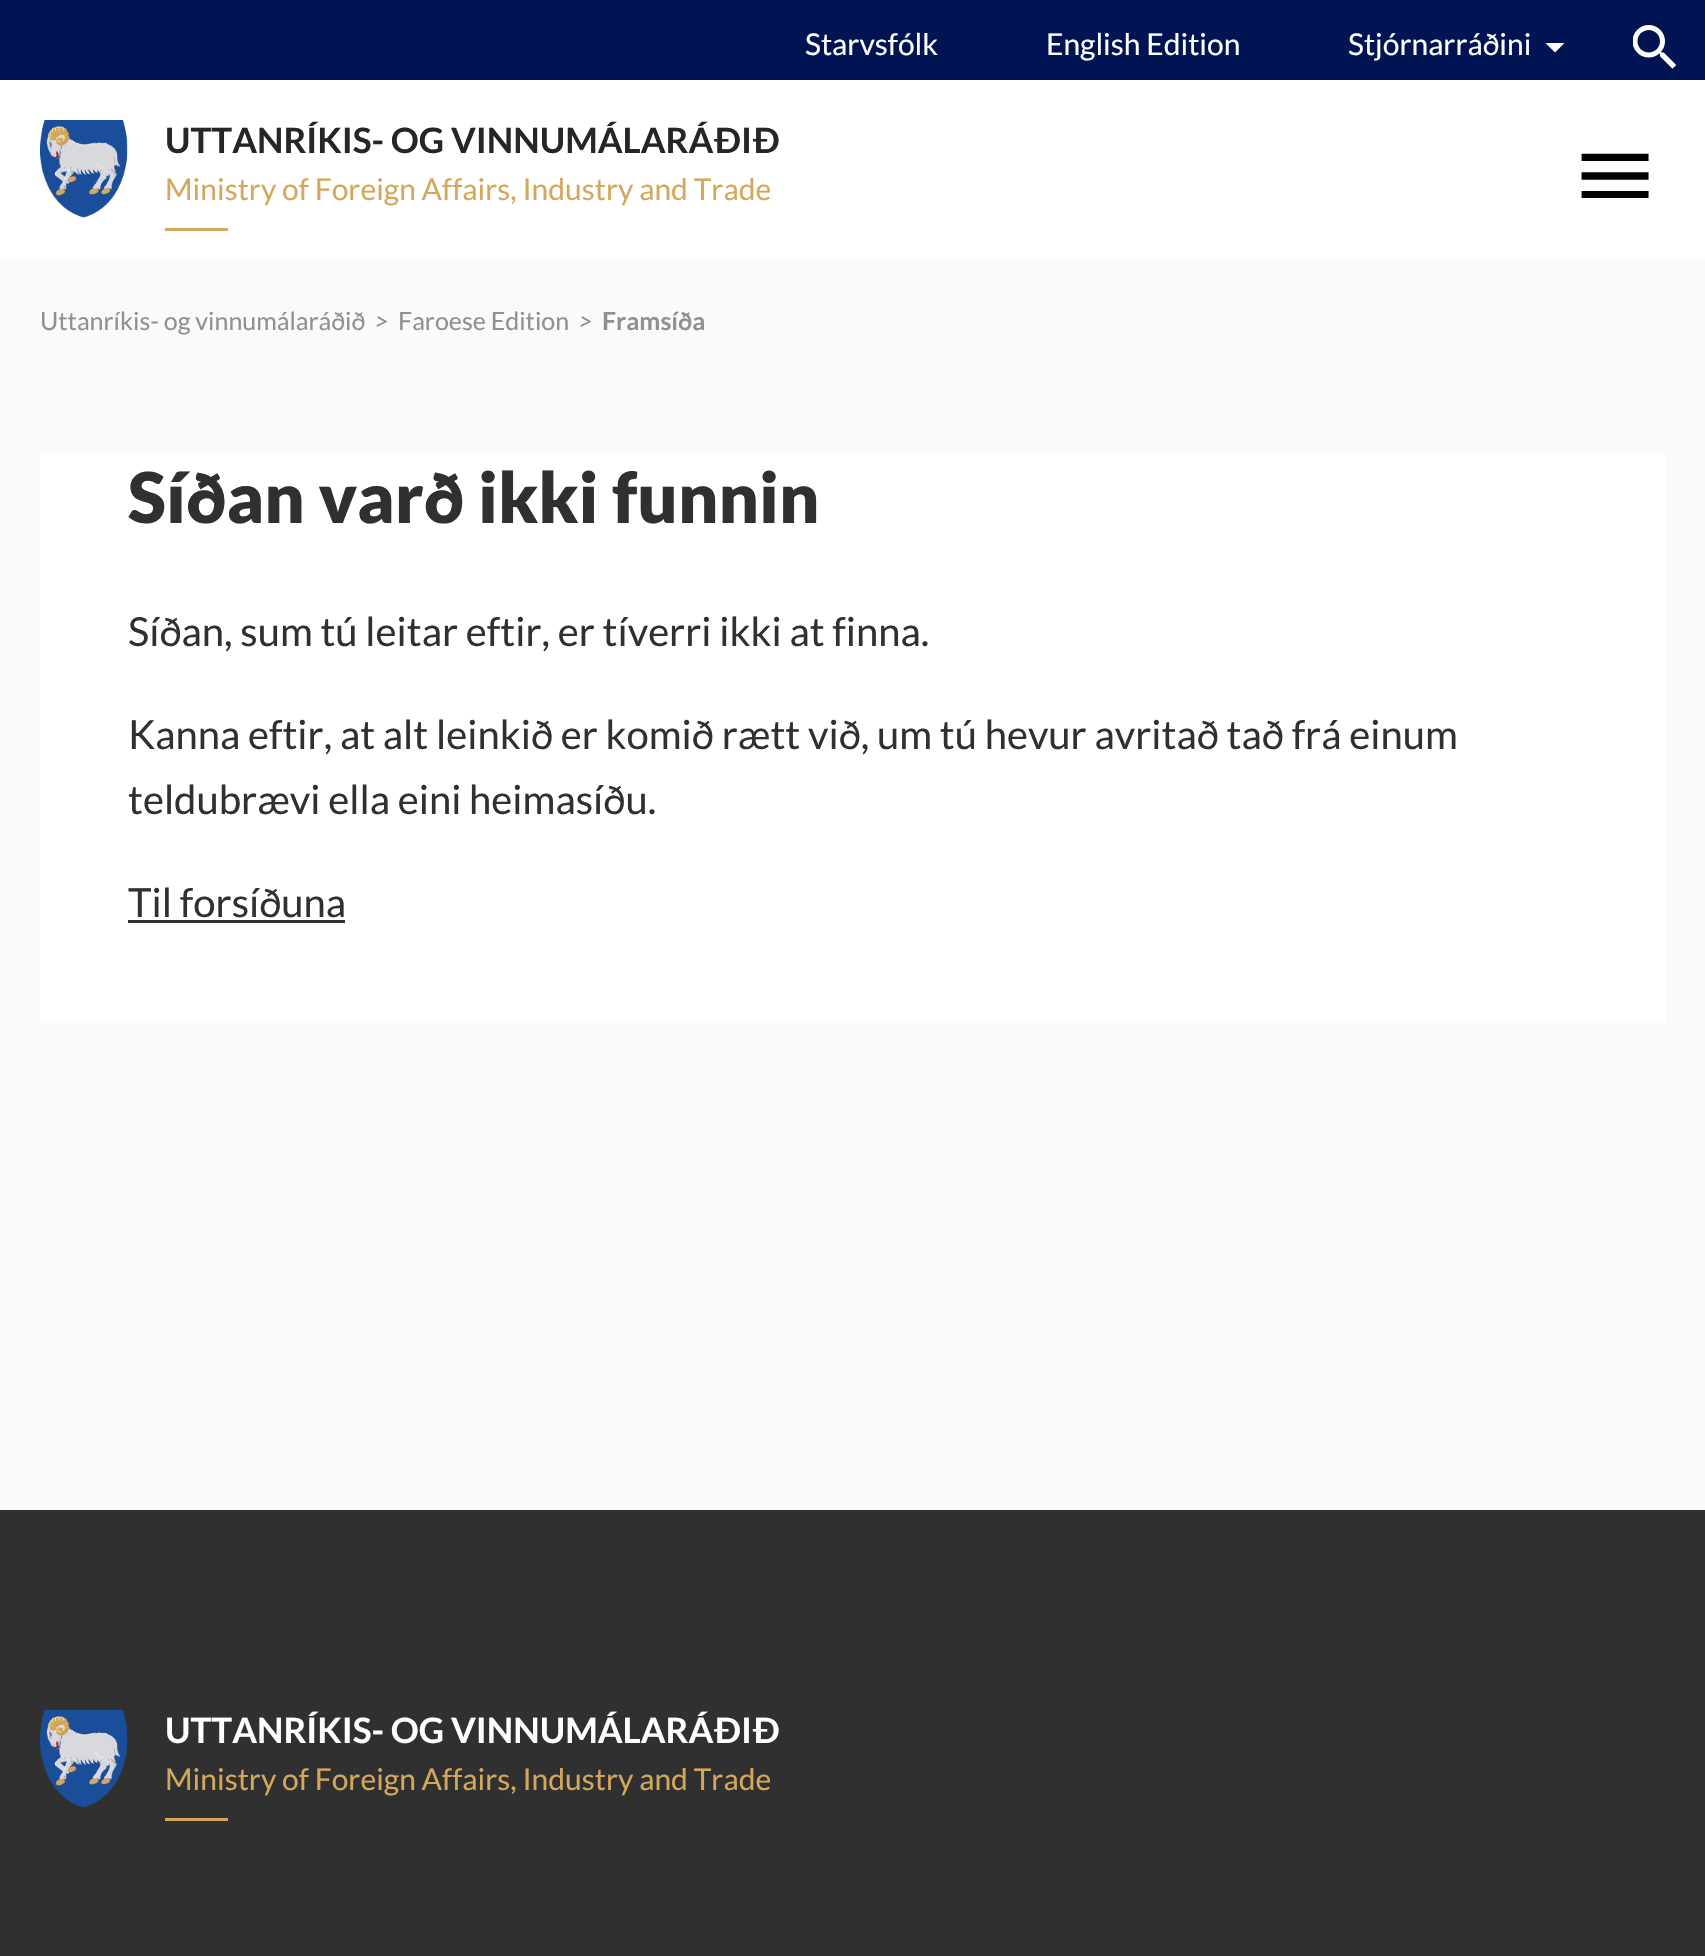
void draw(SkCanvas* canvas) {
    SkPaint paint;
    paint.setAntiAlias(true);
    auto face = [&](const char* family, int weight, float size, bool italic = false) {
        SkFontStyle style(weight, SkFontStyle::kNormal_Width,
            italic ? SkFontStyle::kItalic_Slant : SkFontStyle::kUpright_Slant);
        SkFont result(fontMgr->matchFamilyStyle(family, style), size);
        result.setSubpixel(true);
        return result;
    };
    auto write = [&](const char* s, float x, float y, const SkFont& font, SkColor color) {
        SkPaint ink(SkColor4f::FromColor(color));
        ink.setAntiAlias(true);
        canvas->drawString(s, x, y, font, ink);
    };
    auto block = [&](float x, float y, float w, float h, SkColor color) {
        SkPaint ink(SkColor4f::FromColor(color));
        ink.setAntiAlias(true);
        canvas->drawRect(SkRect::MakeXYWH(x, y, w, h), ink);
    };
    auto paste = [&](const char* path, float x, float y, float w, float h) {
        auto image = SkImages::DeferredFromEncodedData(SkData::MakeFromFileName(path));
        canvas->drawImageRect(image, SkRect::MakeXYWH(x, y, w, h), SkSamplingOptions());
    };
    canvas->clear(SkColorSetRGB(48, 48, 48));
    block(0, 80, 1705, 180, SK_ColorWHITE);
    block(0, 0, 1705, 80, SkColorSetRGB(0, 20, 84));
    auto kFont1 = face("Lato", 400, 30);
    write("Starvsfólk", 805, 55, kFont1, SK_ColorWHITE);
    write("English Edition", 1046, 55, kFont1, SK_ColorWHITE);
    write("Stjórnarráðini", 1348, 55, kFont1, SK_ColorWHITE);
    paste("pic1.png", 1545, 43, 20, 10);
    paste("pic2.png", 1633, 25, 43, 44);
    paste("pic3.png", 40, 120, 88, 98);
    auto kFont2 = face("Lato", 700, 35);
    write("UTTANRÍKIS- OG VINNUMÁLARÁÐIÐ", 165, 153, kFont2, SkColorSetRGB(38, 38, 38));
    write("Ministry of Foreign Affairs, Industry and Trade", 165, 200, kFont1, SkColorSetRGB(212, 168, 92));
    block(165, 228, 63, 3, SkColorSetRGB(212, 168, 92));
    paste("pic4.png", 1581, 153, 68, 45);
    block(0, 260, 1705, 1250, SkColorSetRGB(250, 250, 250));
    auto kFont3 = face("Lato", 400, 25);
    write("Uttanríkis- og vinnumálaráðið", 40, 330, kFont3, SkColorSetRGB(144, 144, 144));
    auto kFont4 = face("Lato", 400, 25, true);
    write(">", 375, 330, kFont4, SkColorSetRGB(144, 144, 144));
    write("Faroese Edition", 398, 330, kFont3, SkColorSetRGB(144, 144, 144));
    write(">", 579, 330, kFont4, SkColorSetRGB(144, 144, 144));
    auto kFont5 = face("Lato", 700, 25);
    write("Framsíða", 602, 330, kFont5, SkColorSetRGB(144, 144, 144));
    block(40, 455, 1625, 568, SK_ColorWHITE);
    auto kFont6 = face("Lato", 900, 70);
    write("Síðan varð ikki funnin", 128, 523, kFont6, SkColorSetRGB(48, 48, 48));
    auto kFont7 = face("Lato", 400, 40);
    write("Síðan, sum tú leitar eftir, er tíverri ikki at finna.", 128, 646, kFont7, SkColorSetRGB(48, 48, 48));
    write("Kanna eftir, at alt leinkið er komið rætt við, um tú hevur avritað tað frá einum", 128, 749, kFont7, SkColorSetRGB(48, 48, 48));
    write("teldubrævi ella eini heimasíðu.", 128, 814, kFont7, SkColorSetRGB(48, 48, 48));
    write("Til forsíðuna", 128, 917, kFont7, SkColorSetRGB(48, 48, 48));
    block(128, 920, 217, 3, SkColorSetRGB(48, 48, 48));
    paste("pic5.png", 40, 1710, 88, 98);
    write("UTTANRÍKIS- OG VINNUMÁLARÁÐIÐ", 165, 1743, kFont2, SK_ColorWHITE);
    write("Ministry of Foreign Affairs, Industry and Trade", 165, 1790, kFont1, SkColorSetRGB(212, 168, 92));
    block(165, 1818, 63, 3, SkColorSetRGB(212, 168, 92));
}
